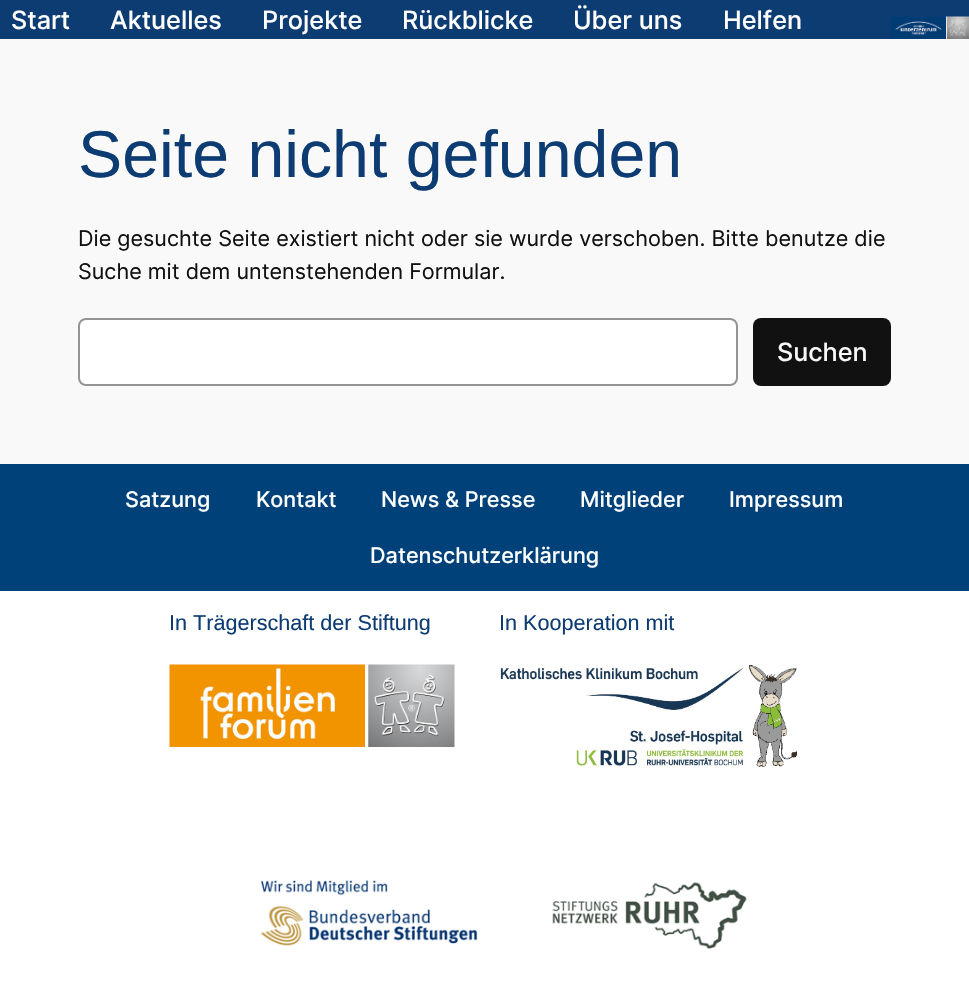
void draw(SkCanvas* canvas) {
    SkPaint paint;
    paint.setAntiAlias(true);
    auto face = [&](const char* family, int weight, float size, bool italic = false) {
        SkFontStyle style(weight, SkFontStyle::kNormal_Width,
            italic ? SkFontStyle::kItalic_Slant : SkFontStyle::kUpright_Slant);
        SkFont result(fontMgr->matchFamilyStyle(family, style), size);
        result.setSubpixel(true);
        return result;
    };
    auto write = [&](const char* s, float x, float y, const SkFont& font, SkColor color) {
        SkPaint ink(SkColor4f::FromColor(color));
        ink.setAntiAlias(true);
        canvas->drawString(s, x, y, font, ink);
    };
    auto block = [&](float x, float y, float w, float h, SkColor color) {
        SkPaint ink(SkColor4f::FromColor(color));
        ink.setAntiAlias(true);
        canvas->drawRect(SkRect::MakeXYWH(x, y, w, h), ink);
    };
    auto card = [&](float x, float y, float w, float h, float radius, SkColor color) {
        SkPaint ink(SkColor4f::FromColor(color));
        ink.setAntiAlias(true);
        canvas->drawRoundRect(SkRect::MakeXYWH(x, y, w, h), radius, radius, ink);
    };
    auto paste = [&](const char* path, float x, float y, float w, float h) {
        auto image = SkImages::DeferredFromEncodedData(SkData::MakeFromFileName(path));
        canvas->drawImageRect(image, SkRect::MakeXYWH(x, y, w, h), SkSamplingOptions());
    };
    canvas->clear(SkColorSetRGB(249, 249, 249));
    block(0, 0, 969, 39, SkColorSetRGB(13, 60, 115));
    auto kFont1 = face("Inter", 500, 25.25f);
    write("Start", 11, 29, kFont1, SK_ColorWHITE);
    write("Aktuelles", 110, 29, kFont1, SK_ColorWHITE);
    write("Projekte", 262, 29, kFont1, SK_ColorWHITE);
    write("Rückblicke", 402, 29, kFont1, SK_ColorWHITE);
    write("Über uns", 573, 29, kFont1, SK_ColorWHITE);
    write("Helfen", 723, 29, kFont1, SK_ColorWHITE);
    paste("pic1.png", 891, 16, 78, 23);
    auto kFont2 = face("Liberation Sans", 400, 66.25f);
    write("Seite nicht gefunden", 78, 177, kFont2, SkColorSetRGB(13, 60, 115));
    auto kFont3 = face("Inter", 400, 21.6f);
    write("Die gesuchte Seite existiert nicht oder sie wurde verschoben. Bitte benutze die", 78, 246, kFont3, SkColorSetRGB(17, 17, 17));
    write("Suche mit dem untenstehenden Formular.", 78, 279, kFont3, SkColorSetRGB(17, 17, 17));
    paint.setColor(SK_ColorWHITE);
    canvas->drawRoundRect(SkRect::MakeXYWH(79, 319, 658, 66), 7, 7, paint);
    paint.setStyle(SkPaint::kStroke_Style);
    paint.setStrokeWidth(2);
    paint.setColor(SkColorSetRGB(148, 148, 148));
    canvas->drawRoundRect(SkRect::MakeXYWH(79, 319, 658, 66), 7, 7, paint);
    card(753, 318, 138, 68, 8, SkColorSetRGB(17, 17, 17));
    write("Suchen", 777, 361, kFont1, SkColorSetRGB(249, 249, 249));
    block(0, 464, 969, 127, SkColorSetRGB(0, 65, 121));
    auto kFont4 = face("Inter", 500, 21.6f);
    write("Satzung", 125, 507, kFont4, SK_ColorWHITE);
    write("Kontakt", 256, 507, kFont4, SK_ColorWHITE);
    write("News & Presse", 381, 507, kFont4, SK_ColorWHITE);
    write("Mitglieder", 580, 507, kFont4, SK_ColorWHITE);
    write("Impressum", 729, 507, kFont4, SK_ColorWHITE);
    write("Datenschutzerklärung", 370, 563, kFont4, SK_ColorWHITE);
    block(0, 591, 969, 395, SK_ColorWHITE);
    auto kFont5 = face("Liberation Sans", 400, 21.6f);
    write("In Trägerschaft der Stiftung", 169, 630, kFont5, SkColorSetRGB(13, 60, 115));
    paste("pic2.png", 169, 664, 286, 83);
    write("In Kooperation mit", 499, 630, kFont5, SkColorSetRGB(13, 60, 115));
    paste("pic3.png", 500, 665, 298, 104);
    paste("pic4.png", 260, 880, 218, 66);
    paste("pic5.png", 552, 882, 195, 67);
}
